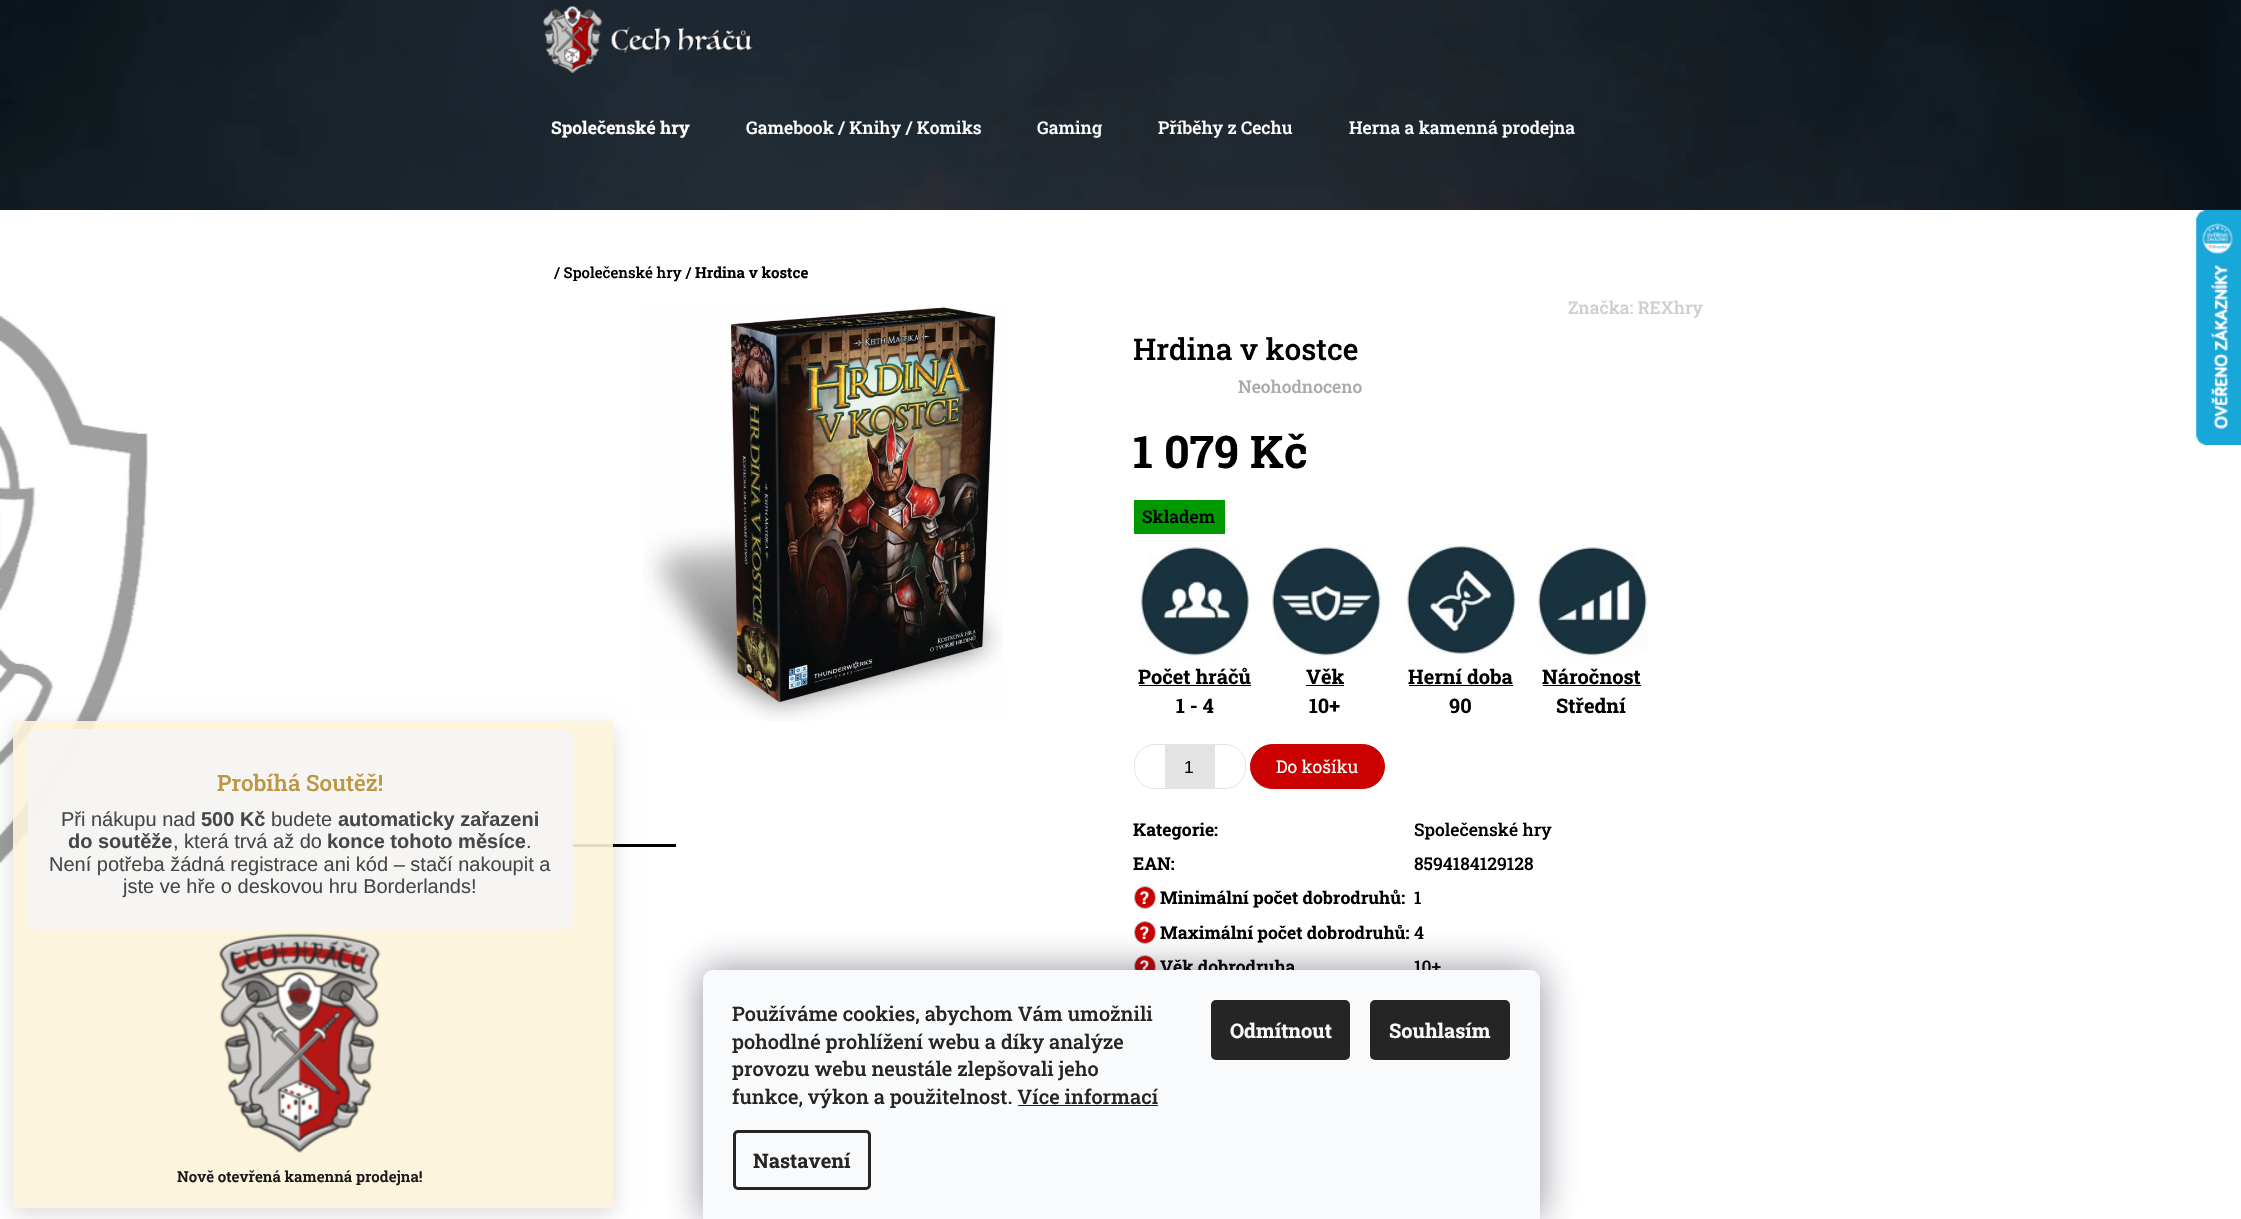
void draw(SkCanvas* canvas) {
    SkPaint paint;
    paint.setAntiAlias(true);
    auto face = [&](const char* family, int weight, float size, bool italic = false) {
        SkFontStyle style(weight, SkFontStyle::kNormal_Width,
            italic ? SkFontStyle::kItalic_Slant : SkFontStyle::kUpright_Slant);
        SkFont result(fontMgr->matchFamilyStyle(family, style), size);
        result.setSubpixel(true);
        return result;
    };
    auto write = [&](const char* s, float x, float y, const SkFont& font, SkColor color) {
        SkPaint ink(SkColor4f::FromColor(color));
        ink.setAntiAlias(true);
        canvas->drawString(s, x, y, font, ink);
    };
    auto block = [&](float x, float y, float w, float h, SkColor color) {
        SkPaint ink(SkColor4f::FromColor(color));
        ink.setAntiAlias(true);
        canvas->drawRect(SkRect::MakeXYWH(x, y, w, h), ink);
    };
    auto card = [&](float x, float y, float w, float h, float radius, SkColor color) {
        SkPaint ink(SkColor4f::FromColor(color));
        ink.setAntiAlias(true);
        canvas->drawRoundRect(SkRect::MakeXYWH(x, y, w, h), radius, radius, ink);
    };
    auto paste = [&](const char* path, float x, float y, float w, float h) {
        auto image = SkImages::DeferredFromEncodedData(SkData::MakeFromFileName(path));
        canvas->drawImageRect(image, SkRect::MakeXYWH(x, y, w, h), SkSamplingOptions());
    };
    canvas->clear(SK_ColorWHITE);
    paste("pic1.png", 0, 315, 148, 549);
    paste("pic2.png", 0, 0, 2241, 210);
    paste("pic3.png", 542, 5, 212, 69);
    auto kFont1 = face("Roboto Slab", 700, 17.5f);
    write("Společenské hry", 551, 134, kFont1, SK_ColorWHITE);
    auto kFont2 = face("Roboto Slab", 500, 17.5f);
    write("Gamebook / Knihy / Komiks", 746, 134, kFont2, SK_ColorWHITE);
    write("Gaming", 1037, 134, kFont2, SK_ColorWHITE);
    write("Příběhy z Cechu", 1158, 134, kFont2, SK_ColorWHITE);
    write("Herna a kamenná prodejna", 1349, 134, kFont2, SK_ColorWHITE);
    paste("pic5.png", 643, 304, 360, 417);
    block(551, 844, 125, 3, SK_ColorBLACK);
    canvas->save();
    canvas->clipPath(SkPathBuilder(SkPathFillType::kEvenOdd).moveTo(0, 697).lineTo(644, 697).lineTo(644, 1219).lineTo(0, 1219).close().moveTo(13, 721).lineTo(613, 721).lineTo(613, 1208).lineTo(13, 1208).close().detach(), true);
    paint.setColor(SkColorSetARGB(36, 0, 0, 0));
    paint.setMaskFilter(SkMaskFilter::MakeBlur(kNormal_SkBlurStyle, 10));
    canvas->drawRect(SkRect::MakeXYWH(13, 728, 600, 486), paint);
    paint.setMaskFilter(nullptr);
    canvas->restore();
    block(13, 721, 600, 487, SkColorSetARGB(230, 253, 243, 218));
    card(28, 729, 545, 201, 10, SkColorSetARGB(230, 245, 245, 245));
    auto kFont3 = face("Roboto Slab", 500, 22.5f);
    write("Probíhá Soutěž!", 217, 791, kFont3, SkColorSetRGB(188, 150, 67));
    auto kFont4 = face("Liberation Sans", 400, 20);
    write("Při nákupu nad", 61, 826, kFont4, SkColorSetRGB(71, 71, 71));
    auto kFont5 = face("Liberation Sans", 700, 20);
    write("500 Kč", 201, 826, kFont5, SkColorSetRGB(71, 71, 71));
    write("budete", 271, 826, kFont4, SkColorSetRGB(71, 71, 71));
    write("automaticky zařazeni", 338, 826, kFont5, SkColorSetRGB(71, 71, 71));
    write("do soutěže", 68, 848, kFont5, SkColorSetRGB(71, 71, 71));
    write(", která trvá až do", 173, 848, kFont4, SkColorSetRGB(71, 71, 71));
    write("konce tohoto měsíce", 327, 848, kFont5, SkColorSetRGB(71, 71, 71));
    write(".", 526, 848, kFont4, SkColorSetRGB(71, 71, 71));
    write("Není potřeba žádná registrace ani kód – stačí nakoupit a", 49, 871, kFont4, SkColorSetRGB(71, 71, 71));
    write("jste ve hře o deskovou hru Borderlands!", 123, 893, kFont4, SkColorSetRGB(71, 71, 71));
    paste("pic4.png", 219, 933, 162, 220);
    auto kFont6 = face("Roboto Slab", 600, 15);
    write("Nově otevřená kamenná prodejna!", 177, 1182, kFont6, SkColorSetRGB(26, 26, 26));
    auto kFont7 = face("Roboto Slab", 500, 15);
    write("/ Společenské hry /", 554, 278, kFont7, SK_ColorBLACK);
    auto kFont8 = face("Roboto Slab", 700, 15);
    write("Hrdina v kostce", 695, 278, kFont8, SK_ColorBLACK);
    write("Značka: REXhry", 1568, 314, kFont2, SkColorSetRGB(207, 207, 207));
    auto kFont9 = face("Roboto Slab", 500, 30);
    write("Hrdina v kostce", 1133, 360, kFont9, SK_ColorBLACK);
    write("Neohodnoceno", 1238, 393, kFont2, SkColorSetRGB(170, 170, 170));
    auto kFont10 = face("Roboto Slab", 700, 45);
    write("1 079 Kč", 1133, 468, kFont10, SK_ColorBLACK);
    block(1134, 500, 91, 34, SkColorSetRGB(0, 153, 1));
    write("Skladem", 1142, 523, kFont2, SK_ColorBLACK);
    paste("pic6.png", 1139, 544, 111, 117);
    paste("pic7.png", 1271, 544, 111, 114);
    paste("pic8.png", 1405, 544, 111, 111);
    paste("pic9.png", 1537, 544, 111, 115);
    auto kFont11 = face("Roboto Slab", 700, 20);
    write("Počet hráčů", 1138, 684, kFont11, SK_ColorBLACK);
    block(1139, 685, 112, 1, SK_ColorBLACK);
    write("Věk", 1306, 684, kFont11, SK_ColorBLACK);
    block(1306, 685, 38, 1, SK_ColorBLACK);
    write("Herní doba", 1408, 684, kFont11, SK_ColorBLACK);
    block(1409, 685, 104, 1, SK_ColorBLACK);
    write("Náročnost", 1542, 684, kFont11, SK_ColorBLACK);
    block(1543, 685, 98, 1, SK_ColorBLACK);
    write("1 - 4", 1176, 713, kFont11, SK_ColorBLACK);
    write("10+", 1309, 713, kFont11, SK_ColorBLACK);
    write("90", 1449, 713, kFont11, SK_ColorBLACK);
    write("Střední", 1556, 713, kFont11, SK_ColorBLACK);
    paint.setStyle(SkPaint::kStroke_Style);
    paint.setStrokeWidth(1);
    paint.setColor(SkColorSetRGB(227, 227, 227));
    canvas->drawRoundRect(SkRect::MakeXYWH(1134.5f, 744.5f, 111, 44), 20.5f, 20.5f, paint);
    paint.setStyle(SkPaint::kFill_Style);
    paint.setColor(SK_ColorWHITE);
    canvas->drawPath(SkPathBuilder().moveTo(1156, 745).lineTo(1165, 745).lineTo(1165, 788).lineTo(1156, 788).cubicTo(1144.5f, 788, 1135, 778.5f, 1135, 767).lineTo(1135, 766).cubicTo(1135, 754.5f, 1144.5f, 745, 1156, 745).close().detach(), paint);
    block(1165, 745, 50, 43, SkColorSetRGB(227, 227, 227));
    auto kFont12 = face("Liberation Sans", 400, 17.5f);
    write("1", 1184, 773, kFont12, SK_ColorBLACK);
    canvas->drawPath(SkPathBuilder().moveTo(1215, 745).lineTo(1224, 745).cubicTo(1235.5f, 745, 1245, 754.5f, 1245, 766).lineTo(1245, 767).cubicTo(1245, 778.5f, 1235.5f, 788, 1224, 788).lineTo(1215, 788).close().detach(), paint);
    paint.setColor(SkColorSetRGB(203, 0, 0));
    canvas->drawRoundRect(SkRect::MakeXYWH(1250.5f, 744.5f, 134, 44), 22, 22, paint);
    paint.setStyle(SkPaint::kStroke_Style);
    canvas->drawRoundRect(SkRect::MakeXYWH(1250.5f, 744.5f, 134, 44), 22, 22, paint);
    auto kFont13 = face("Roboto Slab", 400, 17.5f);
    write("Do košíku", 1276, 773, kFont13, SK_ColorWHITE);
    write("Kategorie:", 1133, 836, kFont1, SK_ColorBLACK);
    write("Společenské hry", 1414, 836, kFont2, SK_ColorBLACK);
    write("EAN:", 1133, 870, kFont1, SK_ColorBLACK);
    write("8594184129128", 1414, 870, kFont2, SK_ColorBLACK);
    paint.setStyle(SkPaint::kFill_Style);
    canvas->drawRoundRect(SkRect::MakeXYWH(1134.5f, 886.5f, 21, 22), 10.5f, 10.5f, paint);
    paint.setStyle(SkPaint::kStroke_Style);
    paint.setColor(SkColorSetRGB(192, 192, 192));
    canvas->drawRoundRect(SkRect::MakeXYWH(1134.5f, 886.5f, 21, 22), 10.5f, 10.5f, paint);
    write("?", 1140, 904, kFont1, SK_ColorWHITE);
    write("Minimální počet dobrodruhů:", 1160, 904, kFont1, SK_ColorBLACK);
    write("1", 1414, 904, kFont2, SK_ColorBLACK);
    paint.setStyle(SkPaint::kFill_Style);
    paint.setColor(SkColorSetRGB(203, 0, 0));
    canvas->drawRoundRect(SkRect::MakeXYWH(1134.5f, 921.5f, 21, 22), 10.5f, 10.5f, paint);
    paint.setStyle(SkPaint::kStroke_Style);
    paint.setColor(SkColorSetRGB(192, 192, 192));
    canvas->drawRoundRect(SkRect::MakeXYWH(1134.5f, 921.5f, 21, 22), 10.5f, 10.5f, paint);
    write("?", 1140, 939, kFont1, SK_ColorWHITE);
    write("Maximální počet dobrodruhů:", 1160, 939, kFont1, SK_ColorBLACK);
    write("4", 1414, 939, kFont2, SK_ColorBLACK);
    paint.setStyle(SkPaint::kFill_Style);
    paint.setColor(SkColorSetRGB(203, 0, 0));
    canvas->drawRoundRect(SkRect::MakeXYWH(1134.5f, 955.5f, 21, 22), 10.5f, 10.5f, paint);
    paint.setStyle(SkPaint::kStroke_Style);
    paint.setColor(SkColorSetRGB(192, 192, 192));
    canvas->drawRoundRect(SkRect::MakeXYWH(1134.5f, 955.5f, 21, 22), 10.5f, 10.5f, paint);
    write("?", 1140, 973, kFont1, SK_ColorWHITE);
    write("Věk dobrodruha", 1160, 973, kFont1, SK_ColorBLACK);
    write("10+", 1414, 973, kFont2, SK_ColorBLACK);
    paste("pic10.png", 2196, 210, 45, 235);
    paint.setStyle(SkPaint::kFill_Style);
    paint.setColor(SkColorSetARGB(128, 27, 25, 57));
    paint.setMaskFilter(SkMaskFilter::MakeBlur(kNormal_SkBlurStyle, 19));
    canvas->drawRoundRect(SkRect::MakeXYWH(703, 970, 837, 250), 10, 10, paint);
    paint.setMaskFilter(nullptr);
    paint.setColor(SkColorSetRGB(248, 250, 251));
    canvas->drawPath(SkPathBuilder().moveTo(713, 970).lineTo(1530, 970).cubicTo(1535.5f, 970, 1540, 974.5f, 1540, 980).lineTo(1540, 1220).lineTo(703, 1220).lineTo(703, 980).cubicTo(703, 974.5f, 707.5f, 970, 713, 970).close().detach(), paint);
    auto kFont14 = face("Roboto Slab", 500, 20);
    write("Používáme cookies, abychom Vám umožnili", 732, 1021, kFont14, SkColorSetRGB(37, 37, 37));
    write("pohodlné prohlížení webu a díky analýze", 732, 1049, kFont14, SkColorSetRGB(37, 37, 37));
    write("provozu webu neustále zlepšovali jeho", 732, 1076, kFont14, SkColorSetRGB(37, 37, 37));
    write("funkce, výkon a použitelnost. Více informací", 732, 1104, kFont14, SkColorSetRGB(37, 37, 37));
    block(1018, 1105, 140, 1, SkColorSetRGB(37, 37, 37));
    paint.setStyle(SkPaint::kStroke_Style);
    paint.setStrokeWidth(3);
    paint.setColor(SkColorSetRGB(37, 37, 37));
    canvas->drawRoundRect(SkRect::MakeXYWH(734.5f, 1131.5f, 135, 57), 3.5f, 3.5f, paint);
    write("Nastavení", 753, 1168, kFont11, SkColorSetRGB(37, 37, 37));
    card(1211, 1000, 139, 60, 5, SkColorSetRGB(37, 37, 37));
    write("Odmítnout", 1230, 1038, kFont11, SkColorSetRGB(248, 250, 251));
    card(1370, 1000, 140, 60, 5, SkColorSetRGB(37, 37, 37));
    write("Souhlasím", 1389, 1038, kFont11, SkColorSetRGB(248, 250, 251));
}
